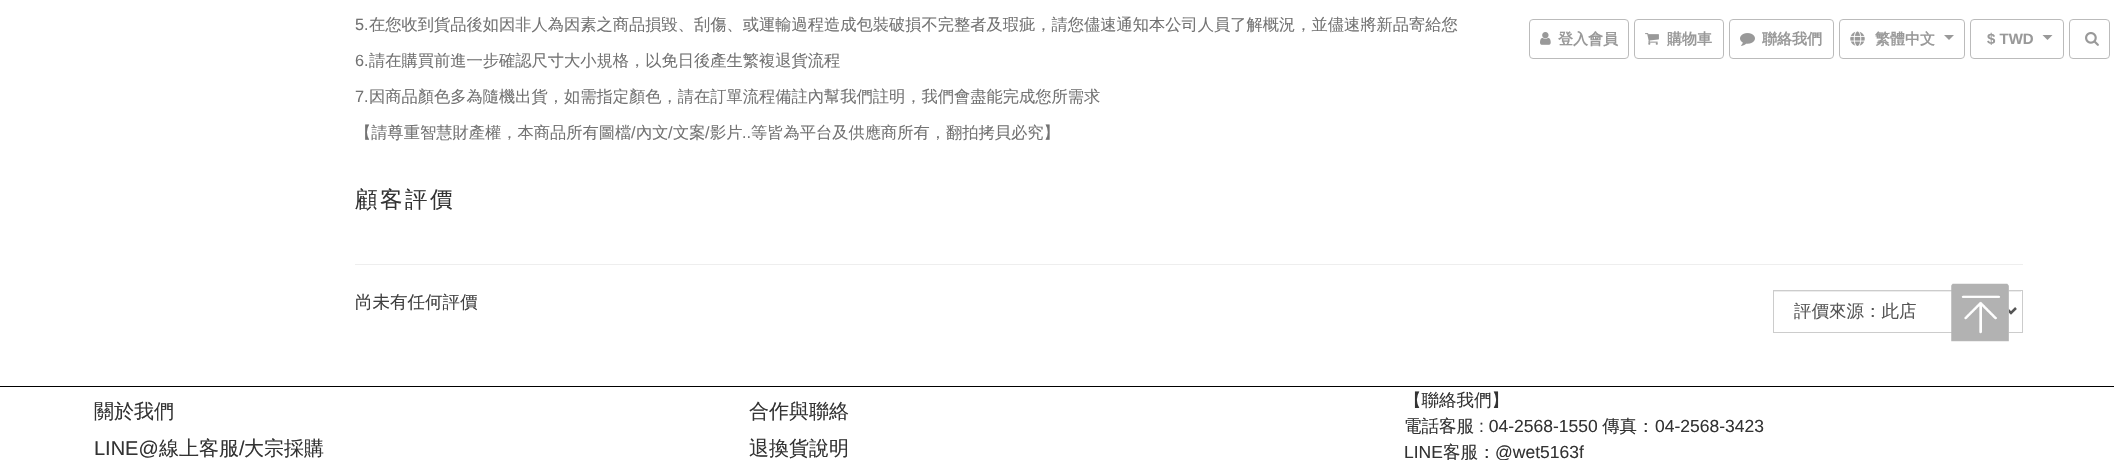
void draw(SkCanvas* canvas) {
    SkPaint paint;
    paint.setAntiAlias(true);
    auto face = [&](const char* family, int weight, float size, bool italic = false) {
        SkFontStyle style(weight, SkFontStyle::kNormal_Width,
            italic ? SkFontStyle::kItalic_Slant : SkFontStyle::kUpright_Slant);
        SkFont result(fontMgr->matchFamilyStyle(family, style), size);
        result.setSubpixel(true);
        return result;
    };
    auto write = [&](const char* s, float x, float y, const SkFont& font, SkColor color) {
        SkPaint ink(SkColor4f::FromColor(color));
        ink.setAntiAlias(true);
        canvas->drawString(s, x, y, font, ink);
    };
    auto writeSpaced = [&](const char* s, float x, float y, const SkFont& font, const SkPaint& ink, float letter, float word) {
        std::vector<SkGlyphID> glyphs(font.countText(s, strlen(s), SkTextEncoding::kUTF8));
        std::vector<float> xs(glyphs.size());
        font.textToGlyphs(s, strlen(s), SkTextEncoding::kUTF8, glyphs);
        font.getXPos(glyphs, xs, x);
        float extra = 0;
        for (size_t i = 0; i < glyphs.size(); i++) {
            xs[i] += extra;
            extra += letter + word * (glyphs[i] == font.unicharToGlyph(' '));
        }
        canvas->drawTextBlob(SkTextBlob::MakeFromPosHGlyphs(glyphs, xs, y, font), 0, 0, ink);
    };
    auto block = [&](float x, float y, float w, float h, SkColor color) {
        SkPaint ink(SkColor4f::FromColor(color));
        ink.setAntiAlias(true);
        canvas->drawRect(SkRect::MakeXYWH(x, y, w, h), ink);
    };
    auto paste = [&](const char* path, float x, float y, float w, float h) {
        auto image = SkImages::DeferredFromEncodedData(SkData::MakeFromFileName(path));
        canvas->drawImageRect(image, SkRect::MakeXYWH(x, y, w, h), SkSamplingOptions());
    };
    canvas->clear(SK_ColorWHITE);
    auto kFont1 = face("Liberation Sans", 400, 16.25f);
    write("5.", 355, 30, kFont1, SkColorSetRGB(115, 115, 115));
    auto kFont2 = face("WenQuanYi Zen Hei", 500, 16.25f);
    write("在您收到貨品後如因非人為因素之商品損毀、刮傷、或運輸過程造成包裝破損不完整者及瑕疵，請您儘速通知本公司人員了解概況，並儘速將新品寄給您", 369, 30, kFont2, SkColorSetRGB(115, 115, 115));
    write("6.", 355, 66, kFont1, SkColorSetRGB(115, 115, 115));
    write("請在購買前進一步確認尺寸大小規格，以免日後產生繁複退貨流程", 369, 66, kFont2, SkColorSetRGB(115, 115, 115));
    write("7.", 355, 102, kFont1, SkColorSetRGB(115, 115, 115));
    write("因商品顏色多為隨機出貨，如需指定顏色，請在訂單流程備註內幫我們註明，我們會盡能完成您所需求", 369, 102, kFont2, SkColorSetRGB(115, 115, 115));
    write("【請尊重智慧財產權，本商品所有圖檔", 355, 138, kFont2, SkColorSetRGB(115, 115, 115));
    write("/", 631, 138, kFont1, SkColorSetRGB(115, 115, 115));
    write("內文", 636, 138, kFont2, SkColorSetRGB(115, 115, 115));
    write("/", 668, 138, kFont1, SkColorSetRGB(115, 115, 115));
    write("文案", 673, 138, kFont2, SkColorSetRGB(115, 115, 115));
    write("/", 705, 138, kFont1, SkColorSetRGB(115, 115, 115));
    write("影片", 710, 138, kFont2, SkColorSetRGB(115, 115, 115));
    write("..", 742, 138, kFont1, SkColorSetRGB(115, 115, 115));
    write("等皆為平台及供應商所有，翻拍拷貝必究】", 751, 138, kFont2, SkColorSetRGB(115, 115, 115));
    auto kFont3 = face("WenQuanYi Zen Hei", 500, 22.5f);
    paint.setColor(SkColorSetRGB(51, 51, 51));
    writeSpaced("顧客評價", 355, 207, kFont3, paint, 2.5f, 0);
    block(355, 264, 1668, 1, SkColorSetRGB(238, 238, 238));
    auto kFont4 = face("WenQuanYi Zen Hei", 500, 17.5f);
    write("尚未有任何評價", 355, 308, kFont4, SkColorSetRGB(64, 64, 64));
    block(1774, 291, 247, 1, SkColorSetRGB(236, 236, 236));
    paint.setStyle(SkPaint::kStroke_Style);
    paint.setStrokeWidth(1);
    paint.setColor(SkColorSetRGB(204, 204, 204));
    canvas->drawRect(SkRect::MakeXYWH(1773.5f, 290.5f, 249, 42), paint);
    paint.setStrokeWidth(2.5f);
    paint.setColor(SkColorSetRGB(85, 85, 85));
    canvas->drawPath(SkPathBuilder().moveTo(2006, 308).lineTo(2011, 313).lineTo(2016, 308).detach(), paint);
    write("評價來源：此店", 1794, 317, kFont4, SkColorSetRGB(85, 85, 85));
    block(0, 386, 2114, 1, SK_ColorBLACK);
    auto kFont5 = face("WenQuanYi Zen Hei", 500, 20);
    write("關於我們", 94, 418, kFont5, SkColorSetRGB(51, 51, 51));
    auto kFont6 = face("Liberation Sans", 400, 20);
    write("LINE@", 94, 455, kFont6, SkColorSetRGB(51, 51, 51));
    write("線上客服", 159, 455, kFont5, SkColorSetRGB(51, 51, 51));
    write("/", 239, 455, kFont6, SkColorSetRGB(51, 51, 51));
    write("大宗採購", 244, 455, kFont5, SkColorSetRGB(51, 51, 51));
    write("合作與聯絡", 749, 418, kFont5, SkColorSetRGB(51, 51, 51));
    write("退換貨說明", 749, 455, kFont5, SkColorSetRGB(51, 51, 51));
    write("【聯絡我們】", 1404, 406, kFont4, SkColorSetRGB(51, 51, 51));
    write("電話客服", 1404, 432, kFont4, SkColorSetRGB(51, 51, 51));
    auto kFont7 = face("Liberation Sans", 400, 17.5f);
    write(": 04-2568-1550", 1479, 432, kFont7, SkColorSetRGB(51, 51, 51));
    write("傳真：", 1602, 432, kFont4, SkColorSetRGB(51, 51, 51));
    write("04-2568-3423", 1655, 432, kFont7, SkColorSetRGB(51, 51, 51));
    write("LINE", 1404, 458, kFont7, SkColorSetRGB(51, 51, 51));
    write("客服：", 1443, 458, kFont4, SkColorSetRGB(51, 51, 51));
    write("@wet5163f", 1495, 458, kFont7, SkColorSetRGB(51, 51, 51));
    paint.setStrokeWidth(1);
    paint.setColor(SkColorSetRGB(187, 187, 187));
    canvas->drawRoundRect(SkRect::MakeXYWH(1529.5f, 19.5f, 99, 39), 3.5f, 3.5f, paint);
    paste("pic1.png", 1540, 32, 11, 13);
    auto kFont8 = face("WenQuanYi Zen Hei", 700, 15);
    write("登入會員", 1558, 44, kFont8, SkColorSetRGB(153, 153, 153));
    canvas->drawRoundRect(SkRect::MakeXYWH(1634.5f, 19.5f, 89, 39), 3.5f, 3.5f, paint);
    paste("pic2.png", 1645, 33, 14, 12);
    write("購物車", 1667, 44, kFont8, SkColorSetRGB(153, 153, 153));
    canvas->drawRoundRect(SkRect::MakeXYWH(1729.5f, 19.5f, 104, 39), 3.5f, 3.5f, paint);
    paste("pic3.png", 1740, 33, 15, 13);
    write("聯絡我們", 1762, 44, kFont8, SkColorSetRGB(153, 153, 153));
    canvas->drawRoundRect(SkRect::MakeXYWH(1839.5f, 19.5f, 125, 39), 3.5f, 3.5f, paint);
    paste("pic4.png", 1850, 31, 15, 15);
    write("繁體中文", 1875, 44, kFont8, SkColorSetRGB(153, 153, 153));
    paint.setStyle(SkPaint::kFill_Style);
    paint.setColor(SkColorSetRGB(153, 153, 153));
    canvas->drawPath(SkPathBuilder().moveTo(1944, 35).lineTo(1954, 35).lineTo(1949, 40).close().detach(), paint);
    paint.setStyle(SkPaint::kStroke_Style);
    paint.setColor(SkColorSetRGB(187, 187, 187));
    canvas->drawRoundRect(SkRect::MakeXYWH(1970.5f, 19.5f, 93, 39), 3.5f, 3.5f, paint);
    auto kFont9 = face("Liberation Sans", 700, 15);
    write("$ TWD", 1987, 44, kFont9, SkColorSetRGB(153, 153, 153));
    paint.setStyle(SkPaint::kFill_Style);
    paint.setColor(SkColorSetRGB(153, 153, 153));
    canvas->drawPath(SkPathBuilder().moveTo(2042.5f, 35).lineTo(2052.5f, 35).lineTo(2047.5f, 40).close().detach(), paint);
    paint.setStyle(SkPaint::kStroke_Style);
    paint.setColor(SkColorSetRGB(187, 187, 187));
    canvas->drawRoundRect(SkRect::MakeXYWH(2069.5f, 19.5f, 40, 39), 3.5f, 3.5f, paint);
    paste("pic5.png", 2085, 32, 14, 14);
    paste("pic6.png", 1951, 283, 58, 59);
}
